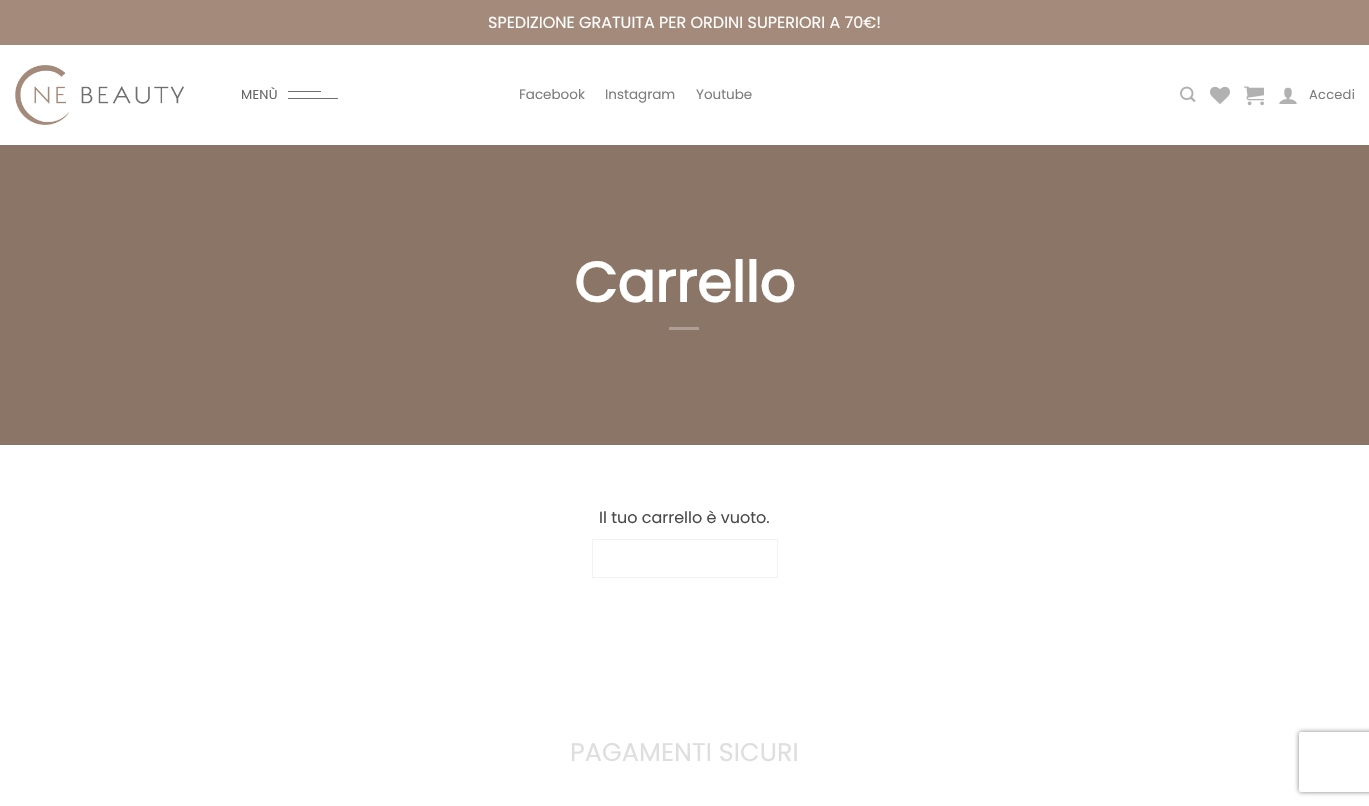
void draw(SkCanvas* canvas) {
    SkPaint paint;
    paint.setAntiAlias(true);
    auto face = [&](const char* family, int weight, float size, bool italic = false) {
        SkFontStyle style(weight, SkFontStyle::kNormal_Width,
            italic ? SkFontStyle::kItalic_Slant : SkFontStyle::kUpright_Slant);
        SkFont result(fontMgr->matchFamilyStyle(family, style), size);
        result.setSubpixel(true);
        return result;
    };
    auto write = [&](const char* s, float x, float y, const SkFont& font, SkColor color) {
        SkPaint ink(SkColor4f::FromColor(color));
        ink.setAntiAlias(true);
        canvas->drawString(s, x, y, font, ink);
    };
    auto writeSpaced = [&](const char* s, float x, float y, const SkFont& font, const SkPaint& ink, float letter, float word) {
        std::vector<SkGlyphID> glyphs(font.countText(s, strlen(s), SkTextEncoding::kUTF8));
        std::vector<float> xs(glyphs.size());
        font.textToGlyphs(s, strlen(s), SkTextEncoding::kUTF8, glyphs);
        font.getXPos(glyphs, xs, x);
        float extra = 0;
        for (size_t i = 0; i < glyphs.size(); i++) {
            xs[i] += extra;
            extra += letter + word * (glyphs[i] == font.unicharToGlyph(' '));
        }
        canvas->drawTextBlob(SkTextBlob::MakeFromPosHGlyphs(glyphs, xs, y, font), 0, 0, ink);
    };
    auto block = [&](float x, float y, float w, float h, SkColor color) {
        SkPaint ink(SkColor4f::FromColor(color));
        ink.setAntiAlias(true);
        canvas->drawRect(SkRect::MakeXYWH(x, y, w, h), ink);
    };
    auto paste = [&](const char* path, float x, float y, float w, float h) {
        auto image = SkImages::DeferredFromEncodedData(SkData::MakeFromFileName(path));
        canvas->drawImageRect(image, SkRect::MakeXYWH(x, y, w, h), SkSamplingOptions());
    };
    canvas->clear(SK_ColorWHITE);
    block(0, 0, 1369, 45, SkColorSetRGB(164, 138, 122));
    auto kFont1 = face("Poppins", 400, 16);
    write("SPEDIZIONE GRATUITA PER ORDINI SUPERIORI A 70€!", 488, 28, kFont1, SK_ColorWHITE);
    paste("pic1.png", 15, 65, 169, 60);
    auto kFont2 = face("Poppins", 400, 13);
    paint.setColor(SkColorSetRGB(101, 101, 101));
    writeSpaced("MENÙ", 241, 99, kFont2, paint, 0.25f, 0);
    block(288, 91, 33, 1, SkColorSetRGB(112, 111, 111));
    block(288, 98, 50, 1, SkColorSetRGB(112, 111, 111));
    auto kFont3 = face("Poppins", 400, 13.5f);
    write("Facebook", 519, 99, kFont3, SkColorSetRGB(125, 125, 125));
    write("Instagram", 605, 99, kFont3, SkColorSetRGB(125, 125, 125));
    write("Youtube", 696, 99, kFont3, SkColorSetRGB(125, 125, 125));
    paste("pic2.png", 1180, 86, 16, 16);
    paste("pic3.png", 1210, 86, 20, 18);
    paste("pic4.png", 1244, 86, 20, 20);
    paste("pic5.png", 1279, 87, 18, 17);
    paint.setColor(SkColorSetRGB(125, 125, 125));
    writeSpaced("Accedi", 1309, 99, kFont2, paint, 0.25f, 0);
    block(0, 145, 1369, 300, SkColorSetRGB(139, 117, 103));
    auto kFont4 = face("Poppins", 700, 56);
    write("Carrello", 574, 302, kFont4, SK_ColorWHITE);
    block(669, 327, 30, 3, SkColorSetRGB(174, 158, 149));
    write("Il tuo carrello è vuoto.", 599, 523, kFont1, SkColorSetRGB(74, 74, 74));
    paint.setStyle(SkPaint::kStroke_Style);
    paint.setStrokeWidth(1);
    paint.setColor(SkColorSetRGB(242, 242, 242));
    canvas->drawRect(SkRect::MakeXYWH(592.5f, 539.5f, 185, 38), paint);
    auto kFont5 = face("Poppins", 400, 25.5f);
    write("PAGAMENTI SICURI", 570, 761, kFont5, SkColorSetRGB(222, 222, 222));
    canvas->save();
    canvas->clipPath(SkPathBuilder(SkPathFillType::kEvenOdd).moveTo(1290, 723).lineTo(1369, 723).lineTo(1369, 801).lineTo(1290, 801).close().moveTo(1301, 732).lineTo(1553, 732).cubicTo(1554, 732, 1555, 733, 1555, 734).lineTo(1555, 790).cubicTo(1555, 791, 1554, 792, 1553, 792).lineTo(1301, 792).cubicTo(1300, 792, 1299, 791, 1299, 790).lineTo(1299, 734).cubicTo(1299, 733, 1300, 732, 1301, 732).close().detach(), true);
    paint.setStyle(SkPaint::kFill_Style);
    paint.setColor(SkColorSetRGB(128, 128, 128));
    paint.setMaskFilter(SkMaskFilter::MakeBlur(kNormal_SkBlurStyle, 2.5f));
    canvas->drawRoundRect(SkRect::MakeXYWH(1299, 732, 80, 60), 2, 2, paint);
    paint.setMaskFilter(nullptr);
    canvas->restore();
}
